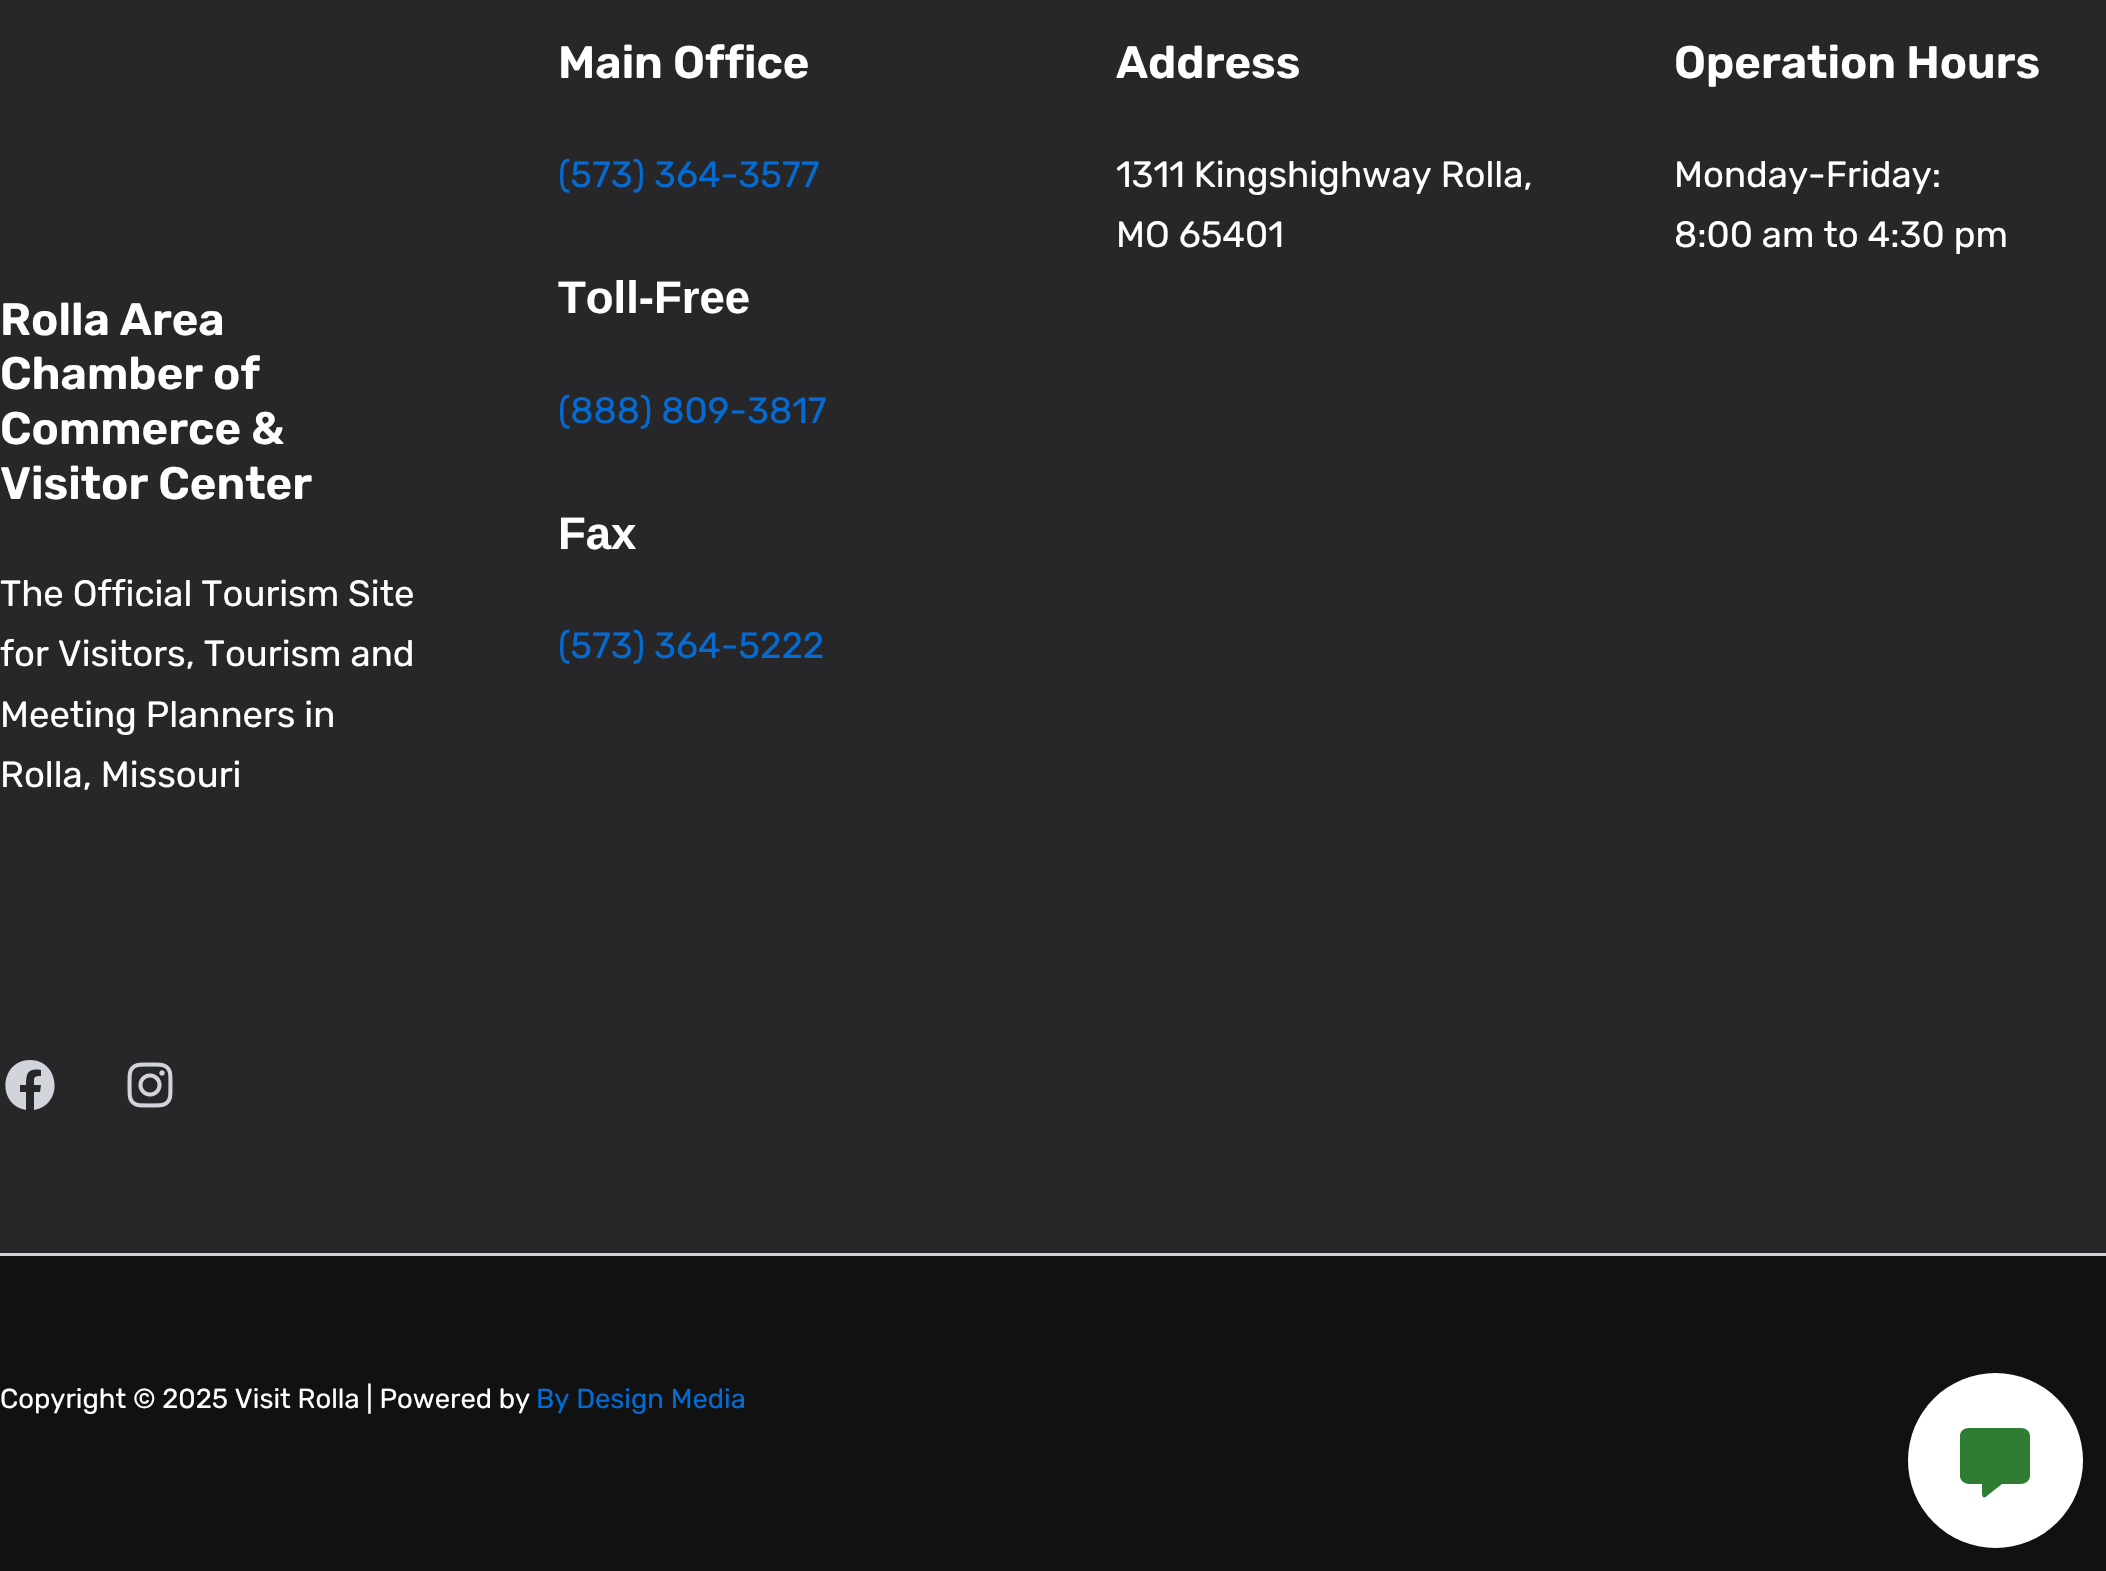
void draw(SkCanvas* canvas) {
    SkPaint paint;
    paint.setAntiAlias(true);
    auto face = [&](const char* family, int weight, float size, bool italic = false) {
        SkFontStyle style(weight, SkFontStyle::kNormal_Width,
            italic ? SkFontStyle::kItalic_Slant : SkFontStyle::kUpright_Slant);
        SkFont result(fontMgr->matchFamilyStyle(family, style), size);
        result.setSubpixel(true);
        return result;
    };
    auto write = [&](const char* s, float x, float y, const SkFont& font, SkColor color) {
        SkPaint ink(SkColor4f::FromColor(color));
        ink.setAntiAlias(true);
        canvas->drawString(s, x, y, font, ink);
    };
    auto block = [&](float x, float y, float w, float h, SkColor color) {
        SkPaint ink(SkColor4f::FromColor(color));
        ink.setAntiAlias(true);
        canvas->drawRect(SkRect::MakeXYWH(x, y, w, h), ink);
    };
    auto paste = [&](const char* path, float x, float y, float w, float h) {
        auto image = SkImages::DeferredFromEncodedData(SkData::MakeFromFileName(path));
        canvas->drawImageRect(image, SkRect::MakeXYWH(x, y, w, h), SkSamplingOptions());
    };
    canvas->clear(SkColorSetRGB(39, 39, 42));
    auto kFont1 = face("Rubik", 600, 45.5f);
    write("Main Office", 558, 78, kFont1, SK_ColorWHITE);
    auto kFont2 = face("Rubik", 400, 36.5f);
    write("(573) 364-3577", 558, 187, kFont2, SkColorSetRGB(4, 107, 210));
    auto kFont3 = face("Liberation Sans", 700, 45.5f);
    write("Toll-Free", 558, 313, kFont3, SK_ColorWHITE);
    write("(888) 809-3817", 558, 423, kFont2, SkColorSetRGB(4, 107, 210));
    write("Fax", 558, 549, kFont3, SK_ColorWHITE);
    write("(573) 364-5222", 558, 658, kFont2, SkColorSetRGB(4, 107, 210));
    write("Address", 1116, 78, kFont1, SK_ColorWHITE);
    write("1311 Kingshighway Rolla,", 1116, 187, kFont2, SK_ColorWHITE);
    write("MO 65401", 1116, 247, kFont2, SK_ColorWHITE);
    write("Operation Hours", 1674, 78, kFont1, SK_ColorWHITE);
    write("Monday-Friday:", 1674, 187, kFont2, SK_ColorWHITE);
    write("8:00 am to 4:30 pm", 1674, 247, kFont2, SK_ColorWHITE);
    write("Rolla Area", 0, 335, kFont1, SK_ColorWHITE);
    write("Chamber of", 0, 389, kFont1, SK_ColorWHITE);
    write("Commerce &", 0, 444, kFont1, SK_ColorWHITE);
    write("Visitor Center", 0, 499, kFont1, SK_ColorWHITE);
    write("The Official Tourism Site", 0, 606, kFont2, SK_ColorWHITE);
    write("for Visitors, Tourism and", 0, 666, kFont2, SK_ColorWHITE);
    write("Meeting Planners in", 0, 727, kFont2, SK_ColorWHITE);
    write("Rolla, Missouri", 0, 787, kFont2, SK_ColorWHITE);
    paint.setColor(SkColorSetRGB(209, 213, 219));
    canvas->drawPath(SkPathBuilder().moveTo(30, 1060).cubicTo(0, 1060, -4, 1105, 26, 1110).lineTo(26, 1092).lineTo(20, 1092).lineTo(20, 1085).lineTo(26, 1085).cubicTo(26, 1073, 28, 1068, 41, 1070).lineTo(41, 1076).cubicTo(33, 1076, 34, 1078, 34, 1085).lineTo(41, 1085).lineTo(40, 1092).lineTo(34, 1092).lineTo(34, 1110).cubicTo(64, 1105, 60, 1060, 30, 1060).close().detach(), paint);
    paste("pic1.png", 127, 1062, 46, 46);
    block(0, 1256, 2106, 315, SkColorSetRGB(17, 17, 17));
    block(0, 1253, 2106, 3, SkColorSetRGB(209, 213, 219));
    auto kFont4 = face("Rubik", 400, 27.4f);
    write("Copyright © 2025 Visit Rolla | Powered by", 0, 1408, kFont4, SK_ColorWHITE);
    write("By Design Media", 536, 1408, kFont4, SkColorSetRGB(4, 107, 210));
    paint.setColor(SK_ColorWHITE);
    canvas->drawCircle(1995.5f, 1460.5f, 87.5f, paint);
    paint.setColor(SkColorSetRGB(46, 125, 50));
    canvas->drawPath(SkPathBuilder().moveTo(1969, 1428).cubicTo(1964, 1428, 1960, 1431, 1960, 1436).lineTo(1960, 1476).cubicTo(1960, 1480, 1964, 1484, 1969, 1484).lineTo(1982, 1484).lineTo(1982, 1493).cubicTo(1982, 1499, 1985, 1498, 1988, 1495).lineTo(2002, 1484).lineTo(2021, 1484).cubicTo(2026, 1484, 2030, 1480, 2030, 1476).lineTo(2030, 1436).cubicTo(2030, 1431, 2026, 1428, 2021, 1428).close().detach(), paint);
}
